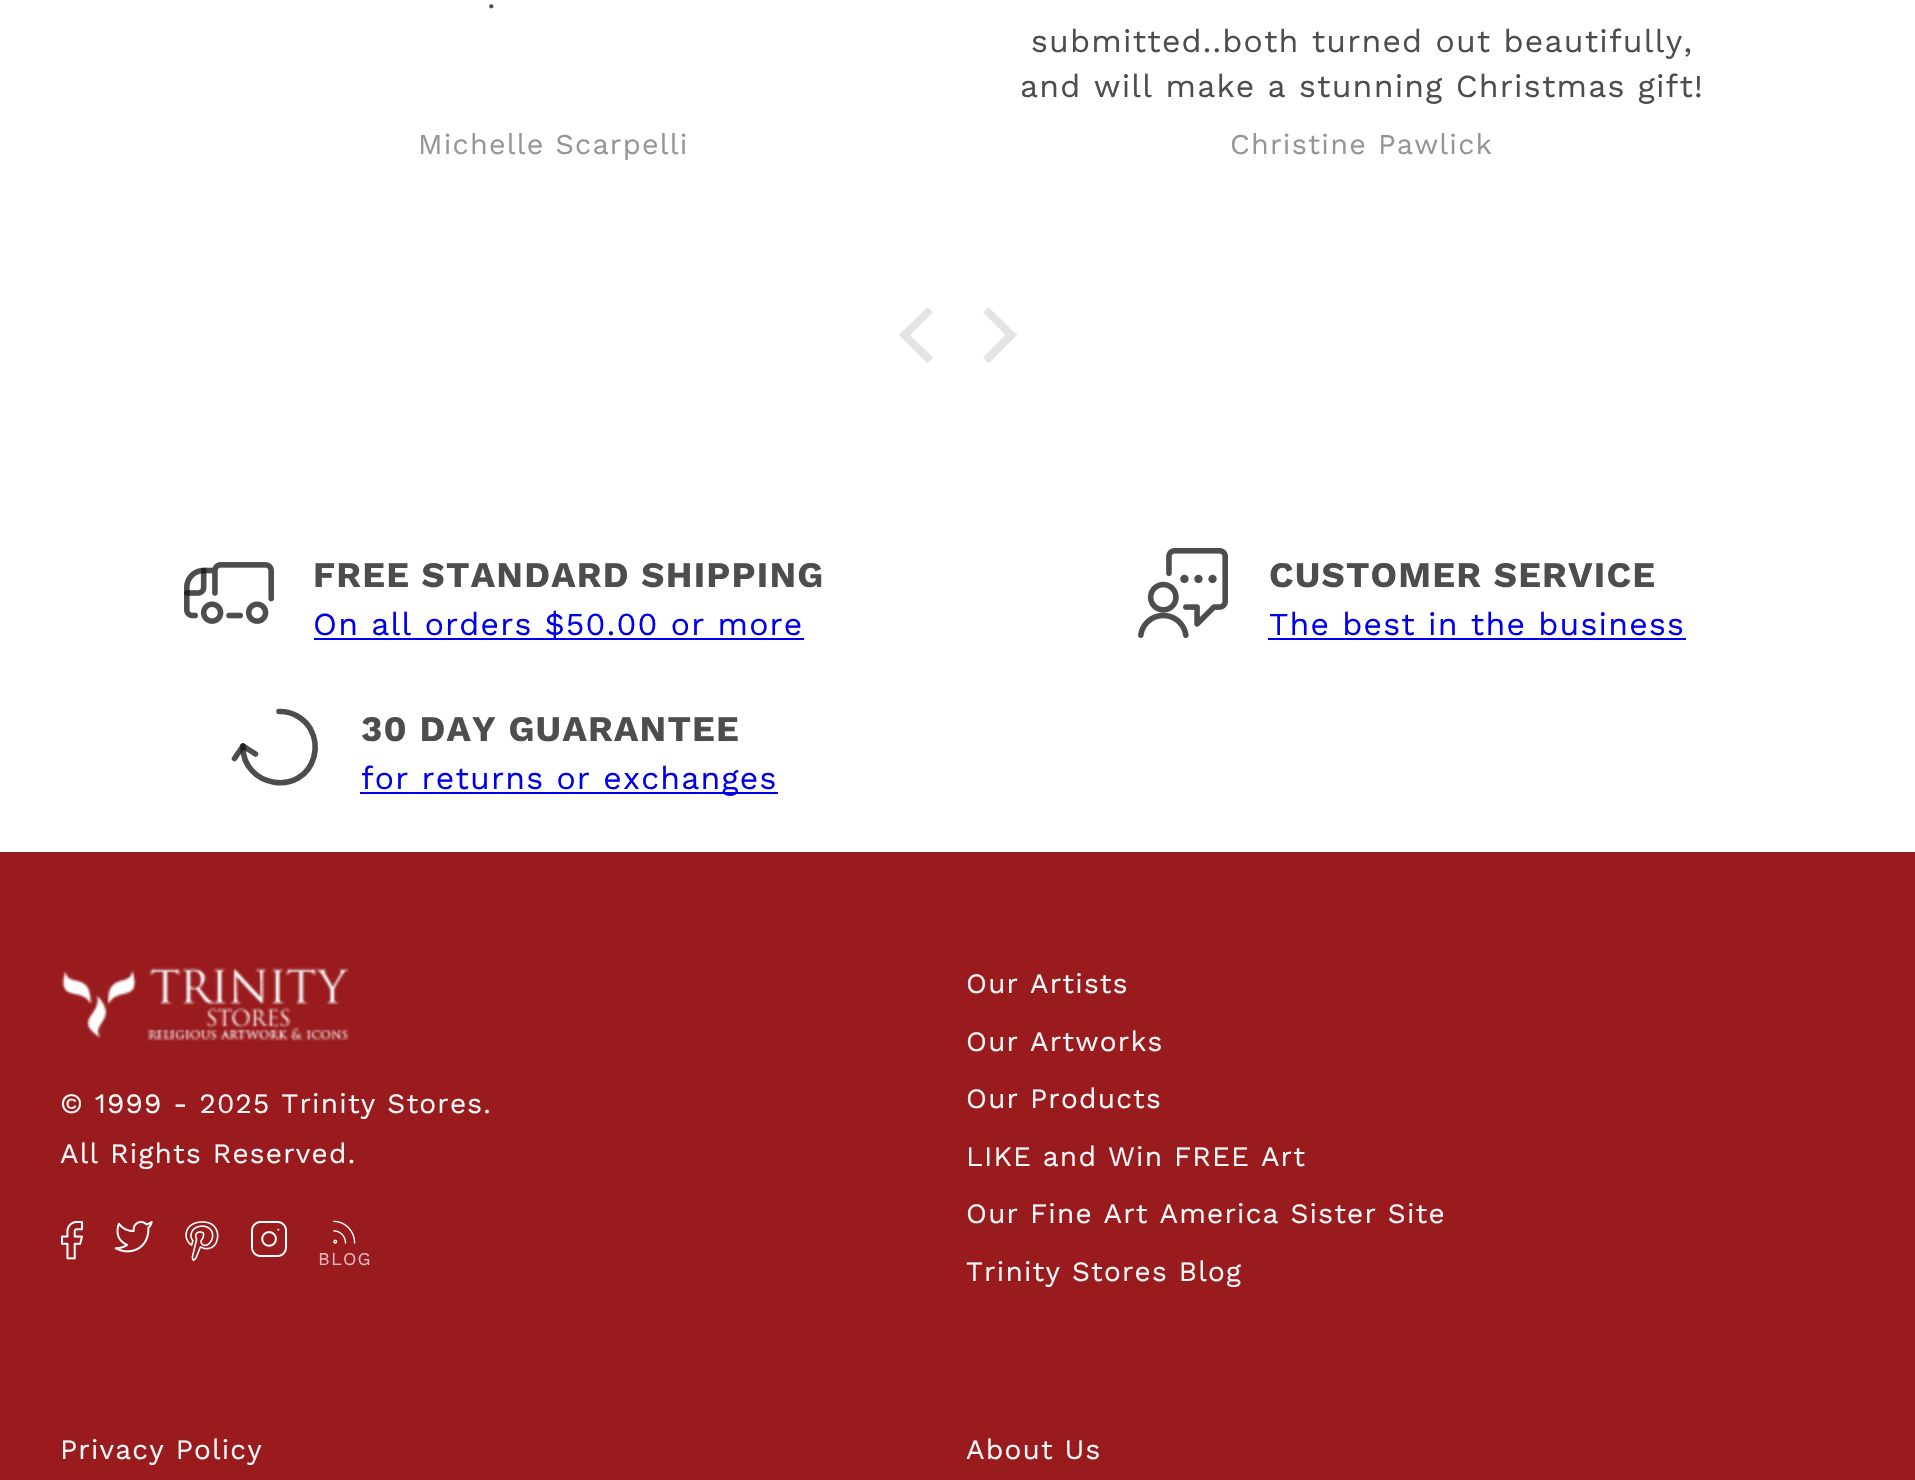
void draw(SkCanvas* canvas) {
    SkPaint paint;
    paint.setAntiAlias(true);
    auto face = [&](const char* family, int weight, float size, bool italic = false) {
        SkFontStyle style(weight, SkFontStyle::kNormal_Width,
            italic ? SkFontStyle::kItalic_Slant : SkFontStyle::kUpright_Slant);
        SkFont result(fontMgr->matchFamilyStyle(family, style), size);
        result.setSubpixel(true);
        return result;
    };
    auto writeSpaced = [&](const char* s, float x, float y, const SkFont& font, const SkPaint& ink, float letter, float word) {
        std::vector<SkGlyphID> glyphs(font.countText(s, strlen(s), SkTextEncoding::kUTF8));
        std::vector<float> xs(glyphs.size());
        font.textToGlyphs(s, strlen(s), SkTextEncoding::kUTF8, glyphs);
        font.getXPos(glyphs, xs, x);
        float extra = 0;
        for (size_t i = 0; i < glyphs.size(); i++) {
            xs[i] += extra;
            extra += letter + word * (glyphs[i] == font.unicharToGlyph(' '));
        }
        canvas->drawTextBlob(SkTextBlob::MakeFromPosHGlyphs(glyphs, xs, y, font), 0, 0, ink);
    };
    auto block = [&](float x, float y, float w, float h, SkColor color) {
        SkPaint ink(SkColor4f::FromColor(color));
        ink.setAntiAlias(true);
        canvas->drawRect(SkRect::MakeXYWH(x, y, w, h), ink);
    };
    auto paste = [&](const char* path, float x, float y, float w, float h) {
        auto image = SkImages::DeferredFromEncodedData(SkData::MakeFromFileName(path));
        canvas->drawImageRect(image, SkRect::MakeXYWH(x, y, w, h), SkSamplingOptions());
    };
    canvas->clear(SK_ColorWHITE);
    auto kFont1 = face("Work Sans", 400, 32);
    paint.setColor(SkColorSetRGB(77, 77, 77));
    writeSpaced(".", 487, 8, kFont1, paint, 1.2f, 0);
    auto kFont2 = face("Work Sans", 400, 28.75f);
    paint.setColor(SkColorSetRGB(149, 149, 149));
    writeSpaced("Michelle Scarpelli", 418, 154, kFont2, paint, 1.2f, 0);
    paint.setColor(SkColorSetRGB(77, 77, 77));
    writeSpaced("submitted..both turned out beautifully,", 1031, 52, kFont1, paint, 1.2f, 0);
    writeSpaced("and will make a stunning Christmas gift!", 1020, 97, kFont1, paint, 1.2f, 0);
    paint.setColor(SkColorSetRGB(149, 149, 149));
    writeSpaced("Christine Pawlick", 1230, 154, kFont2, paint, 1.2f, 0);
    paint.setColor(SkColorSetRGB(228, 228, 228));
    canvas->drawPath(SkPathBuilder().moveTo(899, 335).lineTo(927.5f, 307).lineTo(933, 312.5f).lineTo(904.5f, 340.5f).close().detach(), paint);
    canvas->drawPath(SkPathBuilder().moveTo(899, 335).lineTo(904.5f, 329.5f).lineTo(933, 357.5f).lineTo(927.5f, 363.5f).close().detach(), paint);
    canvas->drawPath(SkPathBuilder().moveTo(983, 312.5f).lineTo(988.5f, 307).lineTo(1017, 335).lineTo(1011, 340.5f).close().detach(), paint);
    canvas->drawPath(SkPathBuilder().moveTo(983, 357.5f).lineTo(1011, 329.5f).lineTo(1017, 335).lineTo(988.5f, 363.5f).close().detach(), paint);
    paste("pic1.png", 184, 562, 90, 62);
    auto kFont3 = face("Work Sans", 700, 36);
    paint.setColor(SkColorSetRGB(77, 77, 77));
    writeSpaced("FREE STANDARD SHIPPING", 313, 587, kFont3, paint, 1.2f, 0);
    block(314, 638, 490, 2, SkColorSetRGB(0, 0, 238));
    paint.setColor(SkColorSetRGB(0, 0, 238));
    writeSpaced("On all orders $50.00 or more", 313, 635, kFont1, paint, 1.2f, 0);
    paste("pic2.png", 1138, 548, 90, 90);
    paint.setColor(SkColorSetRGB(77, 77, 77));
    writeSpaced("CUSTOMER SERVICE", 1269, 587, kFont3, paint, 1.2f, 0);
    paint.setColor(SkColorSetRGB(0, 0, 238));
    writeSpaced("The best in the business", 1269, 635, kFont1, paint, 1.2f, 0);
    block(1268, 638, 418, 2, SkColorSetRGB(0, 0, 238));
    paint.setStyle(SkPaint::kStroke_Style);
    paint.setStrokeWidth(5.6f);
    paint.setStrokeCap(SkPaint::kRound_Cap);
    paint.setStrokeJoin(SkPaint::kRound_Join);
    paint.setColor(SkColorSetRGB(77, 77, 77));
    canvas->drawPath(SkPathBuilder().moveTo(234.5f, 758.5f).lineTo(243, 746).lineTo(255.5f, 754).detach(), paint);
    paint.setColor(SkColorSetARGB(191, 18, 18, 18));
    canvas->drawPath(SkPathBuilder().moveTo(279, 711.5f).cubicTo(292, 711, 304, 718, 310.5f, 729).cubicTo(315, 737.5f, 316.5f, 747, 314, 756.5f).cubicTo(303, 797.5f, 242, 787.5f, 243, 746).detach(), paint);
    paint.setStyle(SkPaint::kFill_Style);
    paint.setColor(SkColorSetRGB(77, 77, 77));
    writeSpaced("30 DAY GUARANTEE", 361, 741, kFont3, paint, 1.2f, 0);
    block(360, 792, 418, 2, SkColorSetRGB(0, 0, 238));
    paint.setColor(SkColorSetRGB(0, 0, 238));
    writeSpaced("for returns or exchanges", 361, 789, kFont1, paint, 1.2f, 0);
    block(0, 852, 1915, 628, SkColorSetRGB(153, 27, 30));
    paste("pic3.png", 61, 967, 288, 74);
    auto kFont4 = face("Work Sans", 400, 28);
    paint.setColor(SkColorSetRGB(247, 247, 247));
    writeSpaced("© 1999 - 2025 Trinity Stores.", 60, 1113, kFont4, paint, 1.2f, 0);
    writeSpaced("All Rights Reserved.", 60, 1163, kFont4, paint, 1.2f, 0);
    paste("pic4.png", 61, 1221, 22, 39);
    paste("pic5.png", 114, 1221, 39, 32);
    paste("pic6.png", 185, 1221, 34, 41);
    paste("pic7.png", 251, 1221, 36, 36);
    paste("pic8.png", 333, 1220, 23, 24);
    auto kFont5 = face("Work Sans", 400, 18);
    paint.setColor(SkColorSetRGB(224, 187, 188));
    writeSpaced("BLOG", 318, 1265, kFont5, paint, 1.2f, 0);
    paint.setColor(SkColorSetRGB(247, 247, 247));
    writeSpaced("Our Artists", 966, 993, kFont4, paint, 1.2f, 0);
    writeSpaced("Our Artworks", 966, 1051, kFont4, paint, 1.2f, 0);
    writeSpaced("Our Products", 966, 1108, kFont4, paint, 1.2f, 0);
    writeSpaced("LIKE and Win FREE Art", 966, 1166, kFont4, paint, 1.2f, 0);
    writeSpaced("Our Fine Art America Sister Site", 966, 1223, kFont4, paint, 1.2f, 0);
    writeSpaced("Trinity Stores Blog", 966, 1281, kFont4, paint, 1.2f, 0);
    writeSpaced("Privacy Policy", 60, 1459, kFont4, paint, 1.2f, 0);
    writeSpaced("About Us", 966, 1459, kFont4, paint, 1.2f, 0);
}
